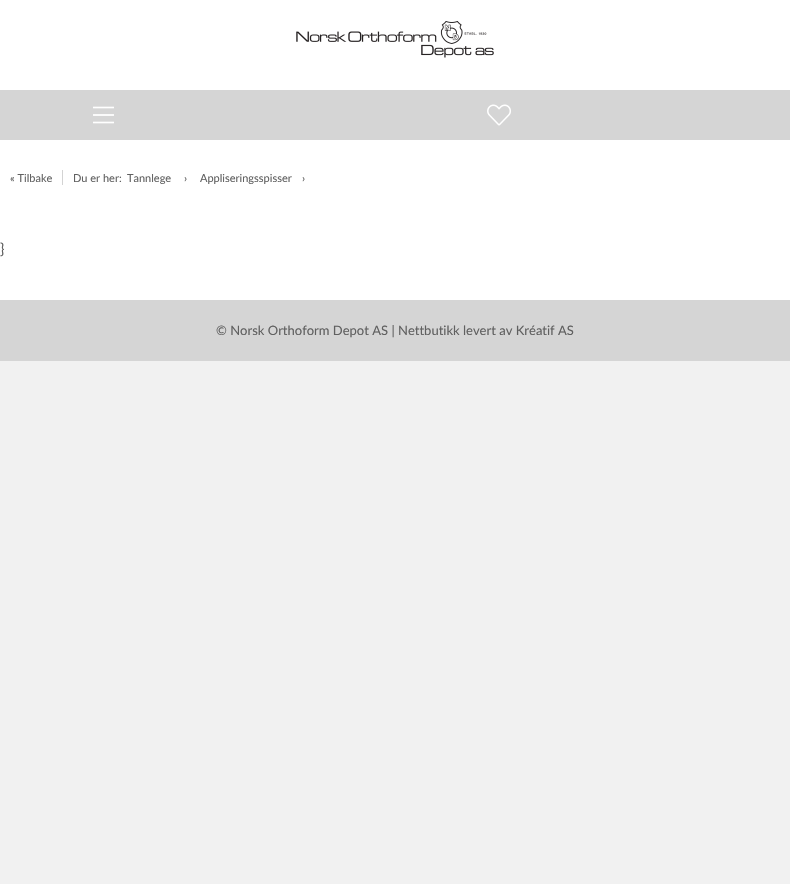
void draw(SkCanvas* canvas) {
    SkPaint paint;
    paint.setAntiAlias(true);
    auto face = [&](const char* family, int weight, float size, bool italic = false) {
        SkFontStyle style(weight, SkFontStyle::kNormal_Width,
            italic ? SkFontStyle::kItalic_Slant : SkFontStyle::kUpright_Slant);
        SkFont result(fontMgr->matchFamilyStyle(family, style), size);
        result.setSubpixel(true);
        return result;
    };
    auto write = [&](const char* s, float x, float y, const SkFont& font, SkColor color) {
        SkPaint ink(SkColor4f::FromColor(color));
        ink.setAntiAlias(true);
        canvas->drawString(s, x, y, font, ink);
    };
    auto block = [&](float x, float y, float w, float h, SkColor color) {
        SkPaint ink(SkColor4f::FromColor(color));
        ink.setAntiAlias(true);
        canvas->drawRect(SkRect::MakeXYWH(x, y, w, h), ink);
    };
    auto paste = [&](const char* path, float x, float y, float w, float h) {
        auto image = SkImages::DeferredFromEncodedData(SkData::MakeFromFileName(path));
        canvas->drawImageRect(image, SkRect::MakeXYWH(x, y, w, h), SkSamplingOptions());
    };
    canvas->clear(SkColorSetRGB(241, 241, 241));
    block(0, 0, 790, 300, SK_ColorWHITE);
    paste("pic1.png", 296, 21, 198, 37);
    block(0, 90, 790, 50, SkColorSetRGB(213, 213, 213));
    paste("pic2.png", 93, 106, 21, 18);
    paste("pic3.png", 487, 104, 24, 22);
    auto kFont1 = face("Lato", 400, 11);
    write("« Tilbake", 10, 182, kFont1, SkColorSetRGB(96, 96, 96));
    block(62, 170, 1, 15, SkColorSetRGB(211, 211, 211));
    write("Du er her:", 73, 182, kFont1, SkColorSetRGB(96, 96, 96));
    write("Tannlege", 127, 182, kFont1, SkColorSetRGB(96, 96, 96));
    write("›", 184, 182, kFont1, SkColorSetRGB(96, 96, 96));
    write("Appliseringsspisser", 200, 182, kFont1, SkColorSetRGB(96, 96, 96));
    write("›", 302, 182, kFont1, SkColorSetRGB(96, 96, 96));
    auto kFont2 = face("Lato", 400, 15);
    write("}", 0, 254, kFont2, SkColorSetRGB(96, 96, 96));
    block(0, 300, 790, 61, SkColorSetRGB(213, 213, 213));
    auto kFont3 = face("Lato", 400, 13);
    write("© Norsk Orthoform Depot AS | Nettbutikk levert av Kréatif AS", 216, 335, kFont3, SkColorSetRGB(96, 96, 96));
}
